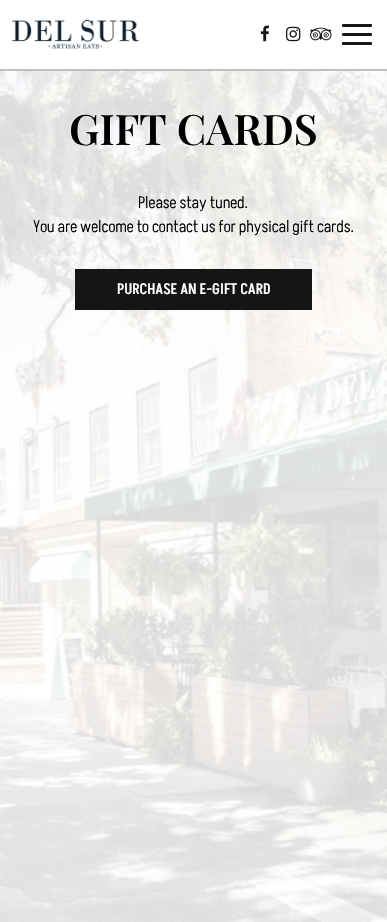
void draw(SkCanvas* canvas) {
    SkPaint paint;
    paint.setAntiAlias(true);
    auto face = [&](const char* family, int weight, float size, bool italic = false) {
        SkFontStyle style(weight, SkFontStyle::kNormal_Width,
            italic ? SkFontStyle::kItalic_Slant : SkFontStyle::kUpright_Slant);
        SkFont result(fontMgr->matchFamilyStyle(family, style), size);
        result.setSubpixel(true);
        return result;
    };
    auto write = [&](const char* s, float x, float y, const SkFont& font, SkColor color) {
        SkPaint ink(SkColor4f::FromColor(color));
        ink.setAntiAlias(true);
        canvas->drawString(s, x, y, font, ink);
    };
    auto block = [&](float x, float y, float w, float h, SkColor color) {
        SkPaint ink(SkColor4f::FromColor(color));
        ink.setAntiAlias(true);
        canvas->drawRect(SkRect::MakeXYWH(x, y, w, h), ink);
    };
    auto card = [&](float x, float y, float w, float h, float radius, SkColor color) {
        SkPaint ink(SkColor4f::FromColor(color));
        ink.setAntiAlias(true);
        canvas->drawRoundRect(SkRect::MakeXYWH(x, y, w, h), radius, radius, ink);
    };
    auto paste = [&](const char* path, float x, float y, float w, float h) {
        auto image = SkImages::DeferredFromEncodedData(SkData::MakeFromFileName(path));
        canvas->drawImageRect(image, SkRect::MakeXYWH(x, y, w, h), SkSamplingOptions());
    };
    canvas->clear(SK_ColorWHITE);
    paste("pic1.png", 11, 19, 129, 30);
    block(0, 69, 387, 2, SkColorSetRGB(191, 191, 191));
    card(342, 24, 30, 3, 1, SkColorSetRGB(21, 21, 21));
    card(342, 33, 30, 3, 1, SkColorSetRGB(21, 21, 21));
    card(342, 42, 30, 3, 1, SkColorSetRGB(21, 21, 21));
    paste("pic2.png", 260, 25, 9, 17);
    paste("pic3.png", 286, 26, 15, 16);
    paste("pic4.png", 310, 27, 22, 14);
    paste("pic5.png", 0, 71, 387, 851);
    auto kFont1 = face("Playfair Display", 600, 42);
    write("GIFT CARDS", 69, 145, kFont1, SK_ColorBLACK);
    auto kFont2 = face("Akshar", 300, 16.75f);
    write("Please stay tuned.", 138, 208, kFont2, SK_ColorBLACK);
    write("You are welcome to contact us for physical gift cards.", 33, 232, kFont2, SK_ColorBLACK);
    block(75, 269, 237, 41, SkColorSetRGB(21, 21, 21));
    auto kFont3 = face("Akshar", 500, 15);
    write("PURCHASE AN E-GIFT CARD", 117, 294, kFont3, SK_ColorWHITE);
}
